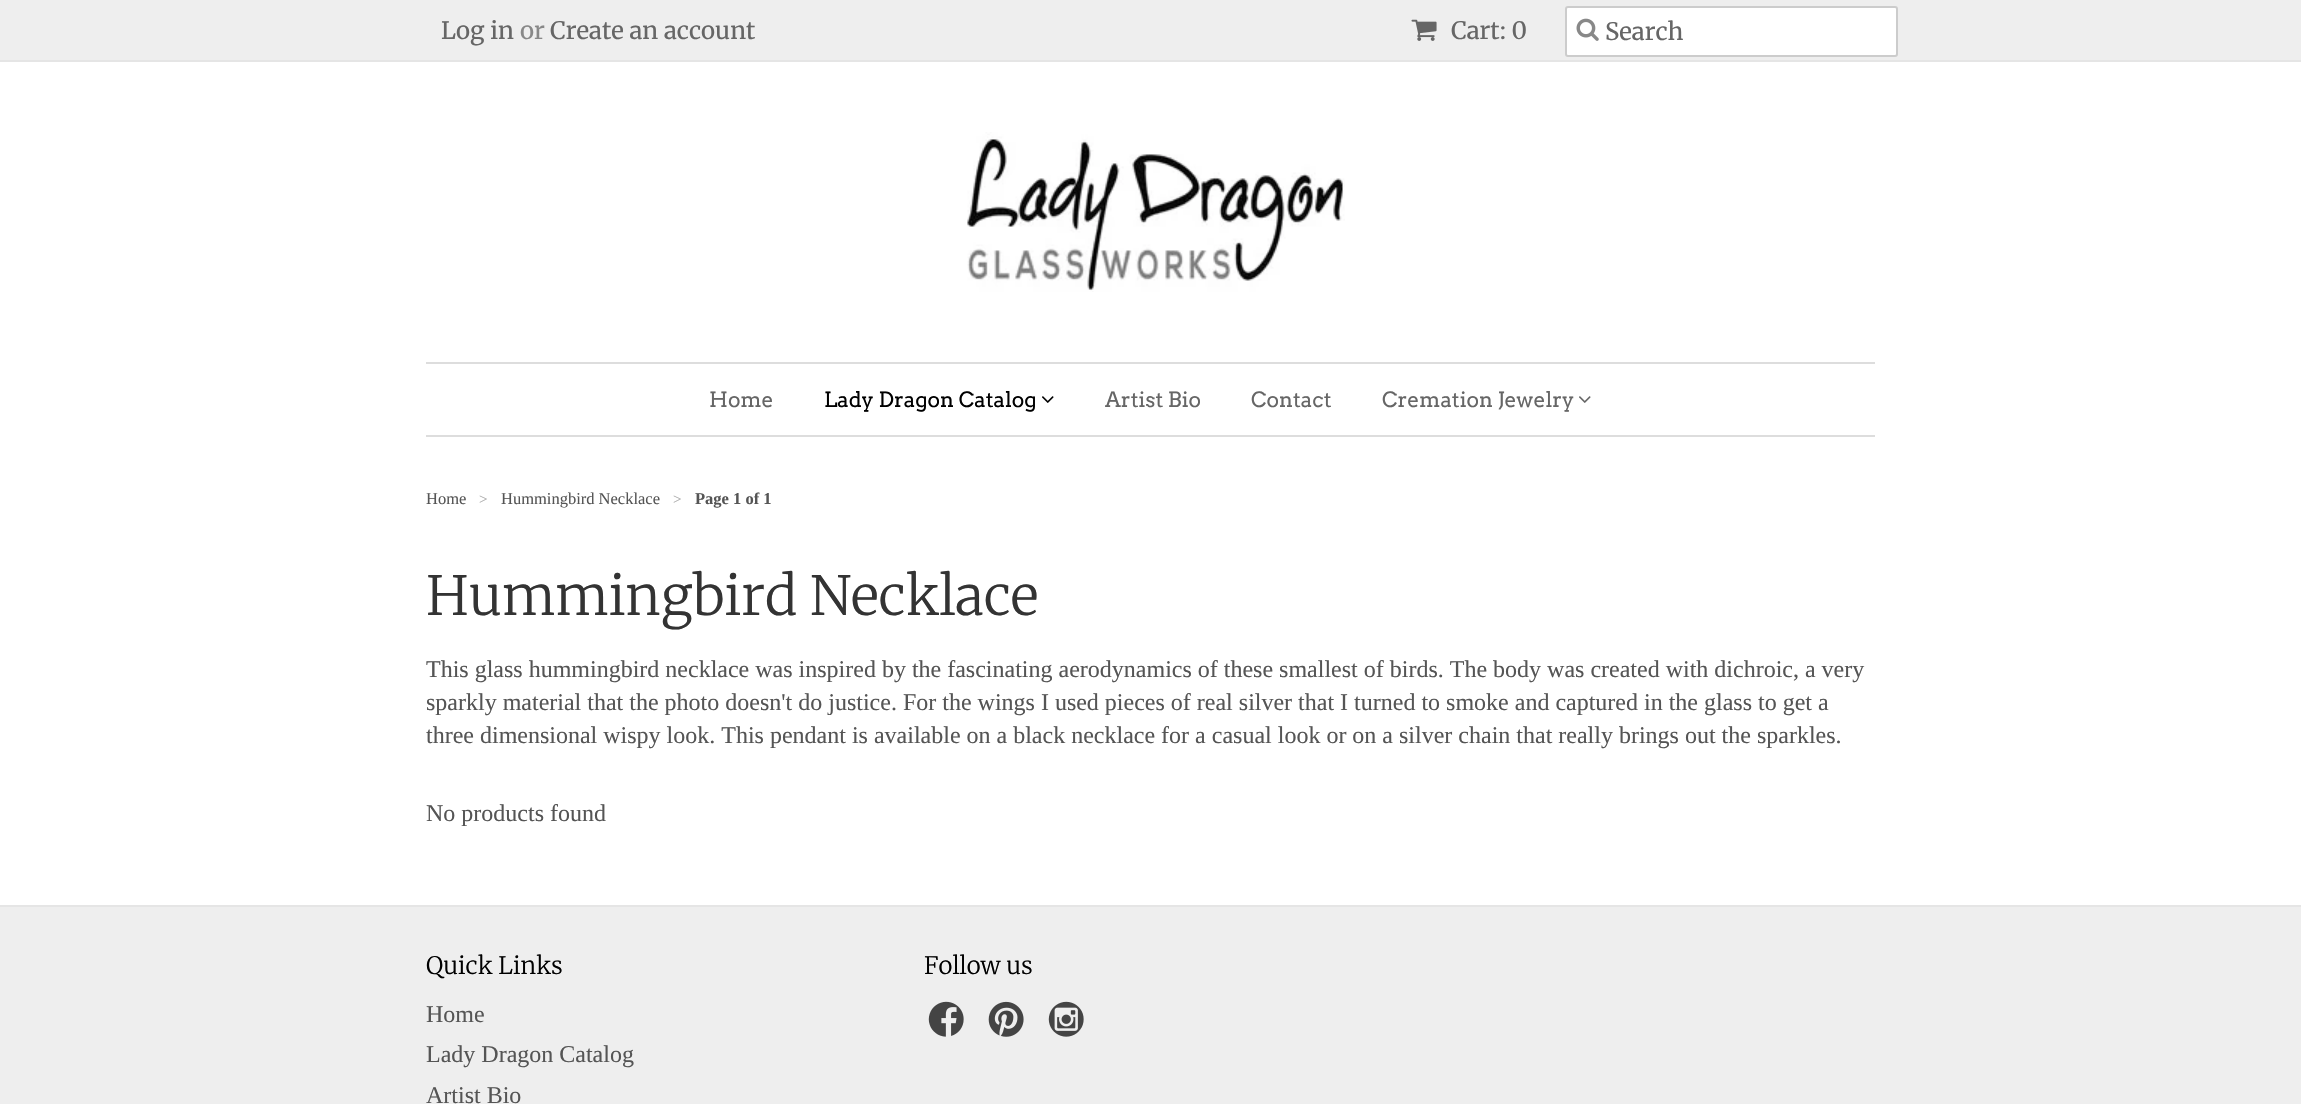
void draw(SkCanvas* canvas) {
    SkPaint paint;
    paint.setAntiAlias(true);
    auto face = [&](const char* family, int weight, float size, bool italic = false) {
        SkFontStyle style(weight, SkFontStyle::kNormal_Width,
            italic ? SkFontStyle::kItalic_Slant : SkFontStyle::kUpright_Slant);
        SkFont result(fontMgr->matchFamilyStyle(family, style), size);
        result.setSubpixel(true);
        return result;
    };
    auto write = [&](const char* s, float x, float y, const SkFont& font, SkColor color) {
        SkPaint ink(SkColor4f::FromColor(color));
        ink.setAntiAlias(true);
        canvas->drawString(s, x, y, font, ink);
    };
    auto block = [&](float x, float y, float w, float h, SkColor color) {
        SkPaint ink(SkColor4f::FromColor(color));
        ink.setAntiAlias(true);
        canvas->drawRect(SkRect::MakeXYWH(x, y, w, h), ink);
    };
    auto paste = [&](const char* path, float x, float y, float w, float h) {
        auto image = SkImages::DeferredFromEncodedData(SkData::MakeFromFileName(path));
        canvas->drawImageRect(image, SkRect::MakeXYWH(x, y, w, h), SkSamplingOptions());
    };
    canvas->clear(SK_ColorWHITE);
    block(0, 0, 2301, 60, SkColorSetRGB(238, 238, 238));
    block(0, 60, 2301, 2, SkColorSetRGB(229, 229, 229));
    auto kFont1 = face("Merriweather", 400, 24);
    write("Log in", 441, 39, kFont1, SkColorSetRGB(102, 102, 102));
    write("or", 520, 39, kFont1, SkColorSetRGB(136, 136, 136));
    write("Create an account", 550, 39, kFont1, SkColorSetRGB(102, 102, 102));
    paste("pic1.png", 1411, 19, 26, 22);
    write("Cart: 0", 1451, 39, kFont1, SkColorSetRGB(102, 102, 102));
    paint.setColor(SK_ColorWHITE);
    canvas->drawRoundRect(SkRect::MakeXYWH(1566, 7, 331, 49), 2, 2, paint);
    paint.setStyle(SkPaint::kStroke_Style);
    paint.setStrokeWidth(2);
    paint.setColor(SkColorSetRGB(204, 204, 204));
    canvas->drawRoundRect(SkRect::MakeXYWH(1566, 7, 331, 49), 2, 2, paint);
    paste("pic2.png", 1576, 18, 23, 23);
    write("Search", 1605, 40, kFont1, SkColorSetRGB(102, 102, 102));
    paste("pic3.png", 967, 132, 378, 160);
    block(426, 362, 1449, 2, SkColorSetRGB(221, 221, 221));
    block(426, 435, 1449, 2, SkColorSetRGB(221, 221, 221));
    auto kFont2 = face("Arvo", 400, 21);
    write("Home", 709, 407, kFont2, SkColorSetRGB(102, 102, 102));
    write("Lady Dragon Catalog", 824, 407, kFont2, SK_ColorBLACK);
    paste("pic4.png", 1042, 396, 12, 7);
    write("Artist Bio", 1105, 407, kFont2, SkColorSetRGB(102, 102, 102));
    write("Contact", 1251, 407, kFont2, SkColorSetRGB(102, 102, 102));
    write("Cremation Jewelry", 1382, 407, kFont2, SkColorSetRGB(102, 102, 102));
    paste("pic5.png", 1579, 396, 12, 7);
    auto kFont3 = face("Liberation Serif", 400, 16.5f);
    write("Home", 426, 504, kFont3, SkColorSetRGB(85, 85, 85));
    auto kFont4 = face("Liberation Serif", 400, 15);
    write(">", 479, 504, kFont4, SkColorSetRGB(170, 170, 170));
    write("Hummingbird Necklace", 501, 504, kFont3, SkColorSetRGB(85, 85, 85));
    write(">", 673, 504, kFont4, SkColorSetRGB(170, 170, 170));
    auto kFont5 = face("Liberation Serif", 700, 16.5f);
    write("Page 1 of 1", 695, 504, kFont5, SkColorSetRGB(85, 85, 85));
    auto kFont6 = face("Merriweather", 300, 54);
    write("Hummingbird Necklace", 426, 615, kFont6, SkColorSetRGB(51, 51, 51));
    auto kFont7 = face("Liberation Serif", 400, 24);
    write("This glass hummingbird necklace was inspired by the fascinating aerodynamics of these smallest of birds. The body was created with dichroic, a very", 426, 677, kFont7, SkColorSetRGB(85, 85, 85));
    write("sparkly material that the photo doesn't do justice. For the wings I used pieces of real silver that I turned to smoke and captured in the glass to get a", 426, 710, kFont7, SkColorSetRGB(85, 85, 85));
    write("three dimensional wispy look. This pendant is available on a black necklace for a casual look or on a silver chain that really brings out the sparkles.", 426, 743, kFont7, SkColorSetRGB(85, 85, 85));
    write("No products found", 426, 821, kFont7, SkColorSetRGB(85, 85, 85));
    block(0, 907, 2301, 197, SkColorSetRGB(238, 238, 238));
    block(0, 905, 2301, 2, SkColorSetRGB(229, 229, 229));
    auto kFont8 = face("Merriweather", 300, 24);
    write("Quick Links", 426, 974, kFont8, SK_ColorBLACK);
    write("Home", 426, 1022, kFont7, SkColorSetRGB(85, 85, 85));
    write("Lady Dragon Catalog", 426, 1062, kFont7, SkColorSetRGB(85, 85, 85));
    write("Artist Bio", 426, 1103, kFont7, SkColorSetRGB(85, 85, 85));
    write("Follow us", 924, 974, kFont8, SK_ColorBLACK);
    paste("pic6.png", 928, 1001, 36, 36);
    paste("pic7.png", 988, 1001, 36, 36);
    paste("pic8.png", 1048, 1001, 36, 36);
}
